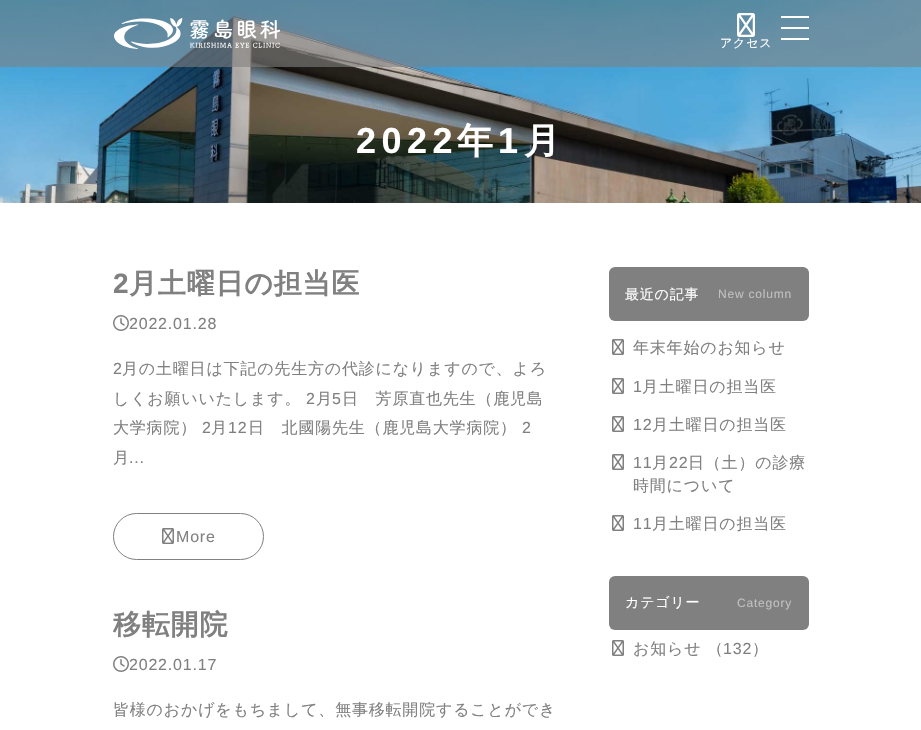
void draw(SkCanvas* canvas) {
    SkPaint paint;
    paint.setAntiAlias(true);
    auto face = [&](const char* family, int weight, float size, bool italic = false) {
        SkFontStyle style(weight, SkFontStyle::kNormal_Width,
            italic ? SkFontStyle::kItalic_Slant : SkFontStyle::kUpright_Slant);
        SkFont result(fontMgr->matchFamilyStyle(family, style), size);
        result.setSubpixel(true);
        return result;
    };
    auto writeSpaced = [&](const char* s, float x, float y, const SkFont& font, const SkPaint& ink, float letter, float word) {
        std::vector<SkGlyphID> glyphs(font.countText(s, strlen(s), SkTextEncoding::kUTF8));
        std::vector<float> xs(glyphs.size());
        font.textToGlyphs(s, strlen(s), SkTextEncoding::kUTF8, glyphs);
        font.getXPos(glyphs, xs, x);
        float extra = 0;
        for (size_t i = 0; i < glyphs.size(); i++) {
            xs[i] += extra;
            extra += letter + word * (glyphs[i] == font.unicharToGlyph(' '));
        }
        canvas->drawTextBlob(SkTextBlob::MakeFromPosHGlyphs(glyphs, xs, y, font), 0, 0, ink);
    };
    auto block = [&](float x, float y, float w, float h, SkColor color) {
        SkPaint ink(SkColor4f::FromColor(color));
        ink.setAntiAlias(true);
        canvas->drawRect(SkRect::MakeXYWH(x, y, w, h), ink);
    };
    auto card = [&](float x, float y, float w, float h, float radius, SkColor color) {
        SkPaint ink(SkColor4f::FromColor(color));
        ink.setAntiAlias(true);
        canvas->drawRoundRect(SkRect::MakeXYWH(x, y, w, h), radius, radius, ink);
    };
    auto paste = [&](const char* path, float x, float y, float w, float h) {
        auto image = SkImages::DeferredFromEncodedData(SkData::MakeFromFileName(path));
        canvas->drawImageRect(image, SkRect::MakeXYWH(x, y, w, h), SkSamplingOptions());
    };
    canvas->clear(SK_ColorWHITE);
    paste("pic3.png", 0, 0, 921, 203);
    block(0, 0, 921, 67, SkColorSetARGB(153, 128, 128, 128));
    paste("pic1.png", 114, 18, 166, 31);
    block(781, 16, 28, 2, SK_ColorWHITE);
    block(781, 27, 28, 2, SK_ColorWHITE);
    block(781, 38, 28, 2, SK_ColorWHITE);
    paste("pic2.png", 737, 13, 18, 24);
    auto kFont1 = face("WenQuanYi Zen Hei", 500, 12);
    paint.setColor(SK_ColorWHITE);
    writeSpaced("アクセス", 720, 47, kFont1, paint, 0.8f, 0);
    auto kFont2 = face("Liberation Sans", 700, 36);
    writeSpaced("2022", 356, 153, kFont2, paint, 5.5f, 0);
    auto kFont3 = face("WenQuanYi Zen Hei", 700, 36);
    writeSpaced("年", 457, 153, kFont3, paint, 5.5f, 0);
    writeSpaced("1", 498, 153, kFont2, paint, 5.5f, 0);
    writeSpaced("月", 524, 153, kFont3, paint, 5.5f, 0);
    auto kFont4 = face("Liberation Sans", 700, 28);
    paint.setColor(SkColorSetRGB(128, 128, 128));
    writeSpaced("2", 113, 293, kFont4, paint, 0.8f, 0);
    auto kFont5 = face("WenQuanYi Zen Hei", 700, 28);
    writeSpaced("月土曜日の担当医", 129, 293, kFont5, paint, 0.8f, 0);
    paste("pic4.png", 113, 315, 16, 16);
    auto kFont6 = face("Liberation Sans", 400, 16);
    writeSpaced("2022.01.28", 129, 329, kFont6, paint, 0.8f, 0);
    writeSpaced("2", 113, 374, kFont6, paint, 0.8f, 0);
    auto kFont7 = face("WenQuanYi Zen Hei", 500, 16);
    writeSpaced("月の土曜日は下記の先生方の代診になりますので、よろ", 122, 374, kFont7, paint, 0.8f, 0);
    writeSpaced("しくお願いいたします。", 113, 404, kFont7, paint, 0.8f, 0);
    writeSpaced("2", 306, 404, kFont6, paint, 0.8f, 0);
    writeSpaced("月", 316, 404, kFont7, paint, 0.8f, 0);
    writeSpaced("5", 332, 404, kFont6, paint, 0.8f, 0);
    writeSpaced("日　芳原直也先生（鹿児島", 342, 404, kFont7, paint, 0.8f, 0);
    writeSpaced("大学病院）", 113, 433, kFont7, paint, 0.8f, 0);
    writeSpaced("2", 202, 433, kFont6, paint, 0.8f, 0);
    writeSpaced("月", 211, 433, kFont7, paint, 0.8f, 0);
    writeSpaced("12", 228, 433, kFont6, paint, 0.8f, 0);
    writeSpaced("日　北國陽先生（鹿児島大学病院）", 248, 433, kFont7, paint, 0.8f, 0);
    writeSpaced("2", 522, 433, kFont6, paint, 0.8f, 0);
    writeSpaced("月", 113, 463, kFont7, paint, 0.8f, 0);
    writeSpaced("...", 129, 463, kFont6, paint, 0.8f, 0);
    paint.setStyle(SkPaint::kStroke_Style);
    paint.setStrokeWidth(1);
    canvas->drawRoundRect(SkRect::MakeXYWH(113.5f, 513.5f, 150, 46), 23, 23, paint);
    paste("pic5.png", 162, 528, 12, 16);
    paint.setStyle(SkPaint::kFill_Style);
    writeSpaced("More", 176, 542, kFont6, paint, 0.8f, 0);
    writeSpaced("移転開院", 113, 634, kFont5, paint, 0.8f, 0);
    paste("pic4.png", 113, 656, 16, 16);
    writeSpaced("2022.01.17", 129, 670, kFont6, paint, 0.8f, 0);
    writeSpaced("皆様のおかげをもちまして、無事移転開院することができ", 113, 715, kFont7, paint, 0.8f, 0);
    card(609, 267, 200, 54, 6, SkColorSetRGB(128, 128, 128));
    auto kFont8 = face("WenQuanYi Zen Hei", 500, 14);
    paint.setColor(SK_ColorWHITE);
    writeSpaced("最近の記事", 625, 299, kFont8, paint, 0.8f, 0);
    auto kFont9 = face("Liberation Sans", 400, 12);
    paint.setColor(SkColorSetRGB(192, 192, 192));
    writeSpaced("New column", 718, 298, kFont9, paint, 0.8f, 0);
    paste("pic5.png", 612, 339, 12, 16);
    paint.setColor(SkColorSetRGB(128, 128, 128));
    writeSpaced("年末年始のお知らせ", 633, 353, kFont7, paint, 0.8f, 0);
    paste("pic5.png", 612, 378, 12, 16);
    writeSpaced("1", 633, 392, kFont6, paint, 0.8f, 0);
    writeSpaced("月土曜日の担当医", 642, 392, kFont7, paint, 0.8f, 0);
    paste("pic5.png", 612, 416, 12, 16);
    writeSpaced("12", 633, 430, kFont6, paint, 0.8f, 0);
    writeSpaced("月土曜日の担当医", 652, 430, kFont7, paint, 0.8f, 0);
    paste("pic5.png", 612, 454, 12, 16);
    writeSpaced("11", 633, 468, kFont6, paint, 0.8f, 0);
    writeSpaced("月", 652, 468, kFont7, paint, 0.8f, 0);
    writeSpaced("22", 669, 468, kFont6, paint, 0.8f, 0);
    writeSpaced("日（土）の診療", 688, 468, kFont7, paint, 0.8f, 0);
    writeSpaced("時間について", 633, 491, kFont7, paint, 0.8f, 0);
    paste("pic5.png", 612, 515, 12, 16);
    writeSpaced("11", 633, 529, kFont6, paint, 0.8f, 0);
    writeSpaced("月土曜日の担当医", 652, 529, kFont7, paint, 0.8f, 0);
    card(609, 576, 200, 54, 6, SkColorSetRGB(128, 128, 128));
    paint.setColor(SK_ColorWHITE);
    writeSpaced("カテゴリー", 625, 607, kFont8, paint, 0.8f, 0);
    paint.setColor(SkColorSetRGB(192, 192, 192));
    writeSpaced("Category", 737, 607, kFont9, paint, 0.8f, 0);
    paste("pic5.png", 612, 640, 12, 16);
    paint.setColor(SkColorSetRGB(128, 128, 128));
    writeSpaced("お知らせ （", 633, 654, kFont7, paint, 0.8f, 0);
    writeSpaced("132", 723, 654, kFont6, paint, 0.8f, 0);
    writeSpaced("）", 752, 654, kFont7, paint, 0.8f, 0);
}
